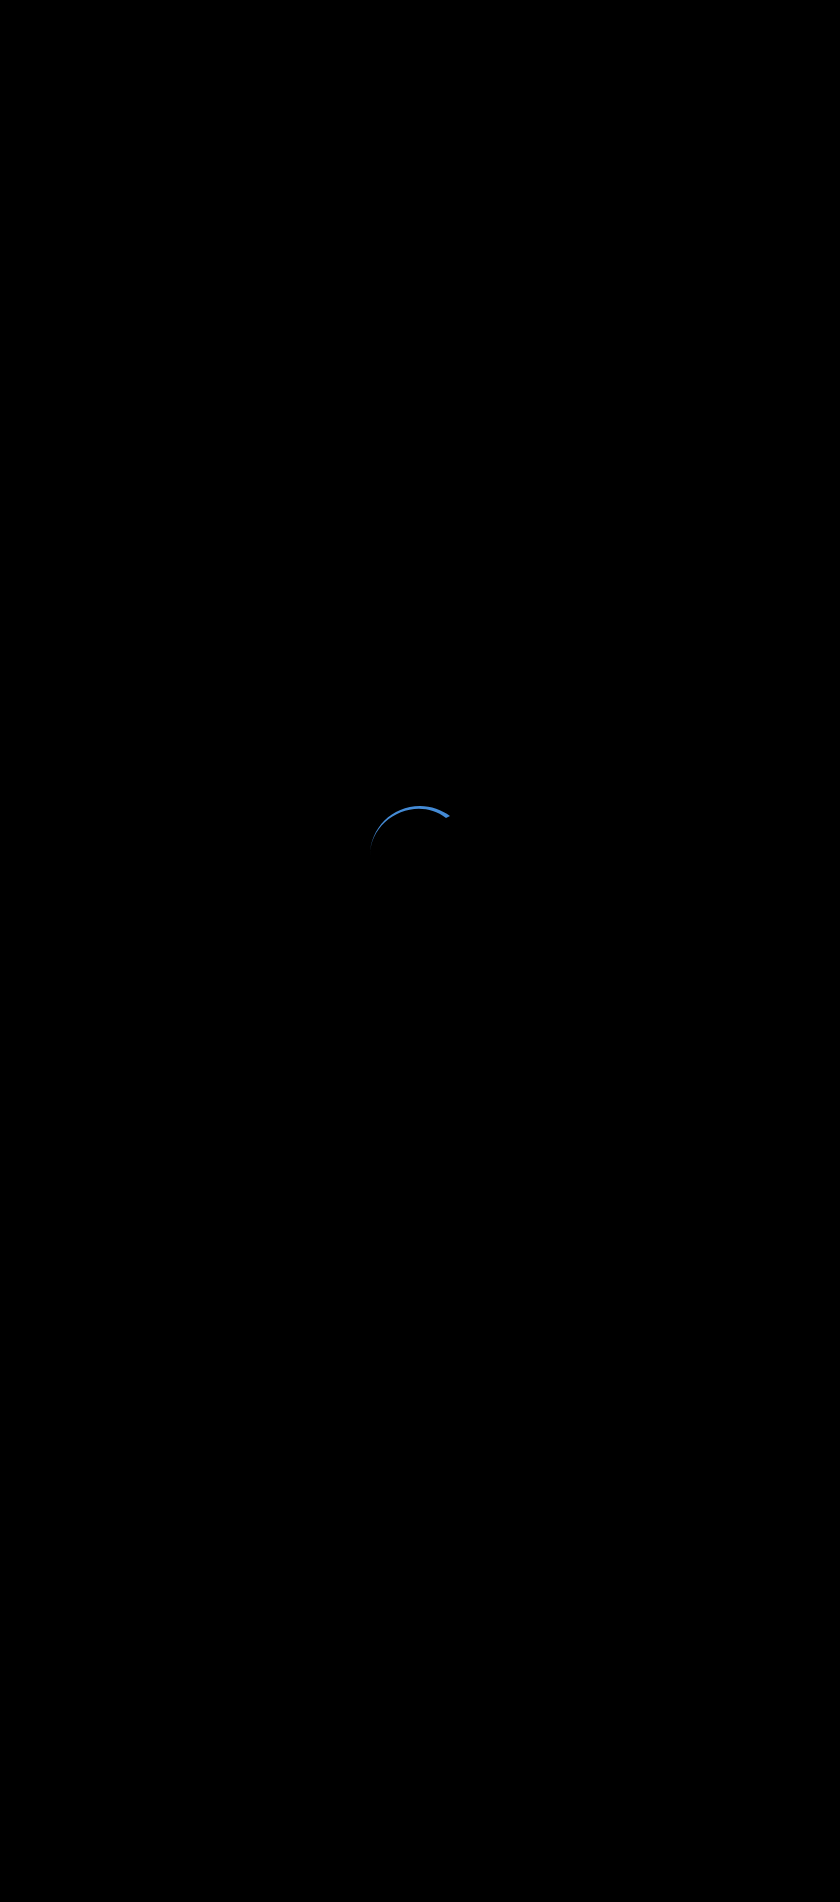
void draw(SkCanvas* canvas) {
    SkPaint paint;
    paint.setAntiAlias(true);
    canvas->clear(SK_ColorBLACK);
    paint.setColor(SkColorSetRGB(68, 139, 214));
    canvas->drawPath(SkPathBuilder().moveTo(420, 806).cubicTo(392, 806, 370, 828, 370, 856).cubicTo(370, 818, 416, 795, 446, 818).lineTo(450, 816).cubicTo(442, 810, 431, 806, 420, 806).close().detach(), paint);
}
